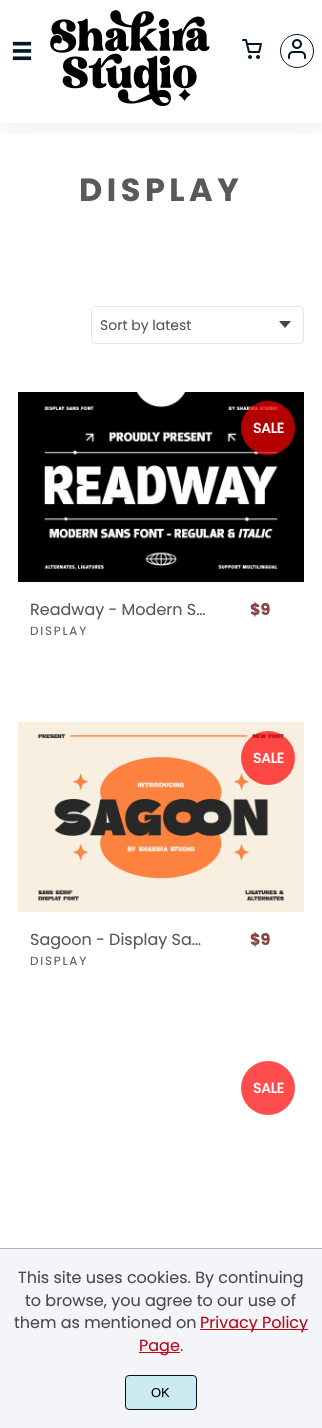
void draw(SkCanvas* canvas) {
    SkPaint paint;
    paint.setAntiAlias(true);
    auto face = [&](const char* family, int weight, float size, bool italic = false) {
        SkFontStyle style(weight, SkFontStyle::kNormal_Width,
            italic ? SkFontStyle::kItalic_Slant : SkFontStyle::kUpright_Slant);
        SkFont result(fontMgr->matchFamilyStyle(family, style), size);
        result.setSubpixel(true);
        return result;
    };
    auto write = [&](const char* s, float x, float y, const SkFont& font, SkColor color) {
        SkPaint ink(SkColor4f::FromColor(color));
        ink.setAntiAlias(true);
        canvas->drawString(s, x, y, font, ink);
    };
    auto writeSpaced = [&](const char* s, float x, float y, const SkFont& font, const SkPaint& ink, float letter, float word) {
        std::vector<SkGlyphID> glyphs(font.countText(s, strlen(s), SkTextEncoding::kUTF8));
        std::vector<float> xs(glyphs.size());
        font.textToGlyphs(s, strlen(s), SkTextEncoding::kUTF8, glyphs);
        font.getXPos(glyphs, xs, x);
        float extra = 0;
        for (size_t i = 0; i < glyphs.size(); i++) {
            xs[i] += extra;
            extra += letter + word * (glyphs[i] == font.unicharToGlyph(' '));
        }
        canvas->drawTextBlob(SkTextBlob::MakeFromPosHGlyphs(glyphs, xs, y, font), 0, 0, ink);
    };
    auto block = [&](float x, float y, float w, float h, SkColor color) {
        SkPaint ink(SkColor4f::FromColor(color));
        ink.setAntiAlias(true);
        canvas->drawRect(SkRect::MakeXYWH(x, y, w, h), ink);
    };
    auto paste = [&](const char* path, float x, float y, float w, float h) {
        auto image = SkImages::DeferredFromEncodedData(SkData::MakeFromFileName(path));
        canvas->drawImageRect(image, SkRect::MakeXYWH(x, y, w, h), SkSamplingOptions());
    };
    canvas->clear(SK_ColorWHITE);
    canvas->save();
    canvas->clipRect(SkRect::MakeXYWH(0, 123, 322, 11));
    paint.setColor(SkColorSetARGB(26, 0, 0, 0));
    paint.setMaskFilter(SkMaskFilter::MakeBlur(kNormal_SkBlurStyle, 13.5f));
    canvas->drawRect(SkRect::MakeXYWH(0, 0, 322, 123), paint);
    paint.setMaskFilter(nullptr);
    canvas->restore();
    paste("pic1.png", 12, 41, 20, 20);
    paste("pic2.png", 50, 10, 160, 97);
    paste("pic3.png", 242, 39, 20, 20);
    paint.setStyle(SkPaint::kStroke_Style);
    paint.setStrokeWidth(1);
    paint.setColor(SkColorSetRGB(3, 25, 38));
    canvas->drawCircle(297, 51, 16.5f, paint);
    paste("pic4.png", 288, 39, 18, 20);
    auto kFont1 = face("Poppins", 700, 32);
    paint.setStyle(SkPaint::kFill_Style);
    paint.setColor(SkColorSetRGB(89, 89, 89));
    writeSpaced("DISPLAY", 79, 201, kFont1, paint, 4.5f, 0);
    paint.setColor(SkColorSetRGB(68, 68, 68));
    canvas->drawPath(SkPathBuilder(SkPathFillType::kEvenOdd).moveTo(285, 328).lineTo(279, 321).lineTo(291, 321).close().detach(), paint);
    paint.setStyle(SkPaint::kStroke_Style);
    paint.setColor(SkColorSetRGB(230, 230, 230));
    canvas->drawRoundRect(SkRect::MakeXYWH(91.5f, 306.5f, 212, 37), 3.5f, 3.5f, paint);
    auto kFont2 = face("Poppins", 400, 14);
    write("Sort by latest", 100, 330, kFont2, SkColorSetRGB(89, 89, 89));
    paste("pic5.png", 18, 392, 286, 190);
    paint.setStyle(SkPaint::kFill_Style);
    paint.setColor(SkColorSetARGB(179, 255, 0, 0));
    canvas->drawCircle(268, 428, 27, paint);
    auto kFont3 = face("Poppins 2", 700, 14);
    write("SALE", 253, 433, kFont3, SK_ColorWHITE);
    auto kFont4 = face("Poppins", 400, 16);
    write("Readway - Modern S…", 30, 615, kFont4, SkColorSetRGB(89, 89, 89));
    auto kFont5 = face("Poppins", 400, 12);
    paint.setColor(SkColorSetRGB(97, 95, 92));
    writeSpaced("DISPLAY", 30, 635, kFont5, paint, 1.75f, 0);
    auto kFont6 = face("Poppins", 700, 16);
    write("$9", 250, 615, kFont6, SkColorSetRGB(136, 68, 63));
    paste("pic6.png", 18, 722, 286, 190);
    paint.setColor(SkColorSetARGB(179, 255, 0, 0));
    canvas->drawCircle(268, 758, 27, paint);
    write("SALE", 253, 763, kFont3, SK_ColorWHITE);
    canvas->save();
    canvas->clipRect(SkRect::MakeXYWH(30, 930, 181, 19));
    write("Sagoon - Display Sa…", 30, 945, kFont4, SkColorSetRGB(89, 89, 89));
    canvas->restore();
    paint.setColor(SkColorSetRGB(97, 95, 92));
    writeSpaced("DISPLAY", 30, 965, kFont5, paint, 1.75f, 0);
    write("$9", 250, 945, kFont6, SkColorSetRGB(136, 68, 63));
    paint.setColor(SkColorSetRGB(255, 77, 77));
    canvas->drawCircle(268, 1088, 27, paint);
    write("SALE", 253, 1093, kFont3, SK_ColorWHITE);
    block(0, 1249, 322, 179, SkColorSetRGB(243, 245, 249));
    block(0, 1248, 322, 1, SkColorSetRGB(175, 177, 179));
    write("This site uses cookies. By continuing", 18, 1283, kFont4, SkColorSetRGB(74, 74, 74));
    write("to browse, you agree to our use of", 25, 1306, kFont4, SkColorSetRGB(74, 74, 74));
    write("them as mentioned on", 14, 1328, kFont4, SkColorSetRGB(74, 74, 74));
    block(200, 1329, 108, 1, SkColorSetRGB(187, 10, 30));
    write("Privacy Policy", 200, 1328, kFont4, SkColorSetRGB(187, 10, 30));
    block(139, 1352, 41, 1, SkColorSetRGB(187, 10, 30));
    write("Page", 139, 1351, kFont4, SkColorSetRGB(187, 10, 30));
    write(".", 180, 1351, kFont4, SkColorSetRGB(74, 74, 74));
    paint.setColor(SkColorSetRGB(202, 235, 242));
    canvas->drawRoundRect(SkRect::MakeXYWH(125.5f, 1375.5f, 71, 34), 3.5f, 3.5f, paint);
    paint.setStyle(SkPaint::kStroke_Style);
    paint.setColor(SkColorSetRGB(17, 17, 17));
    canvas->drawRoundRect(SkRect::MakeXYWH(125.5f, 1375.5f, 71, 34), 3.5f, 3.5f, paint);
    auto kFont7 = face("Liberation Sans", 400, 13);
    write("OK", 151, 1397, kFont7, SK_ColorBLACK);
}
